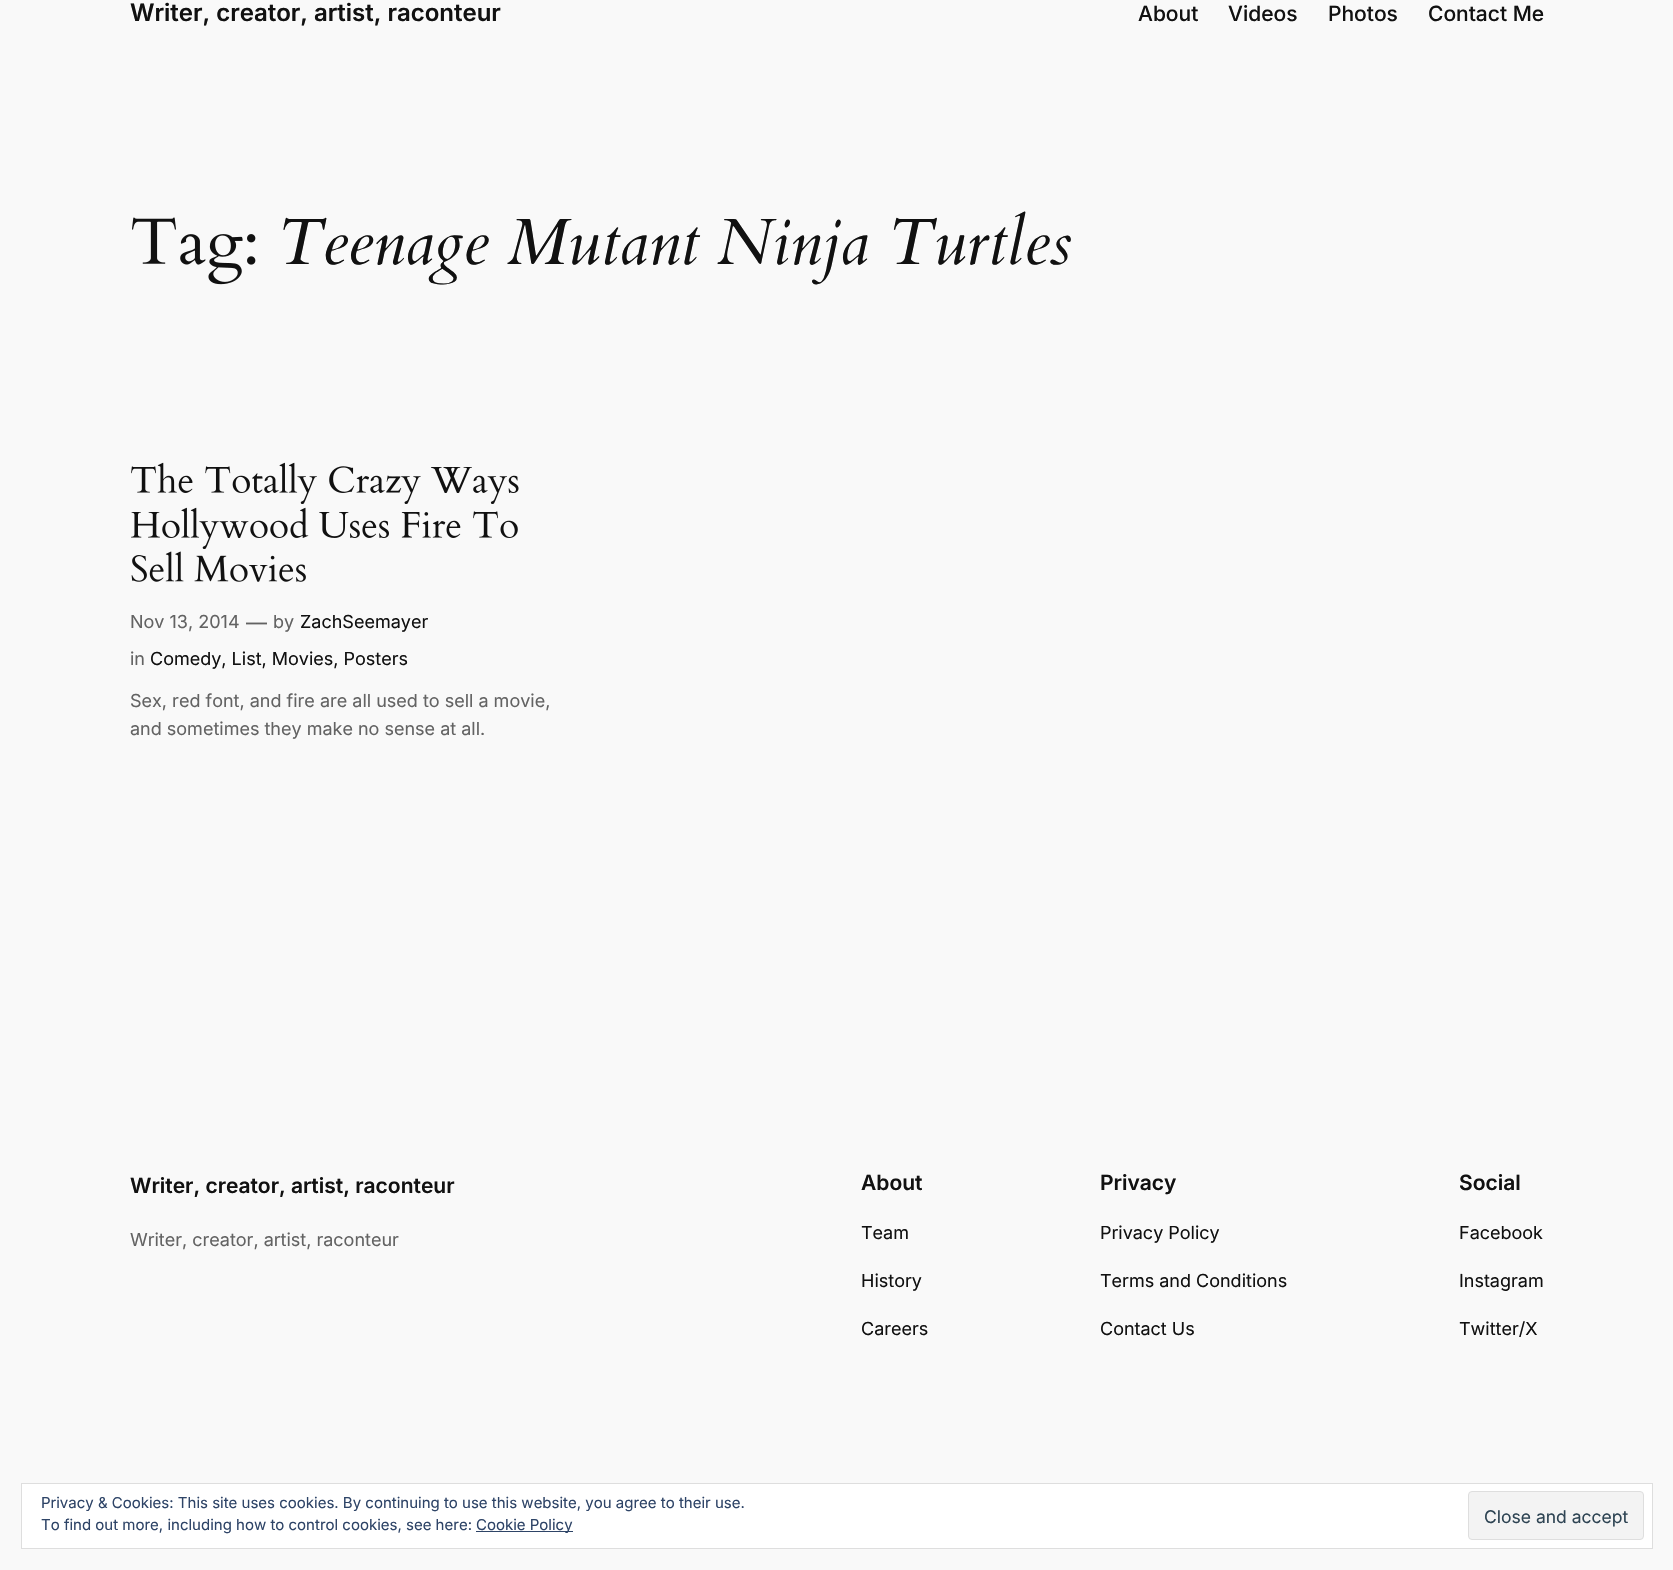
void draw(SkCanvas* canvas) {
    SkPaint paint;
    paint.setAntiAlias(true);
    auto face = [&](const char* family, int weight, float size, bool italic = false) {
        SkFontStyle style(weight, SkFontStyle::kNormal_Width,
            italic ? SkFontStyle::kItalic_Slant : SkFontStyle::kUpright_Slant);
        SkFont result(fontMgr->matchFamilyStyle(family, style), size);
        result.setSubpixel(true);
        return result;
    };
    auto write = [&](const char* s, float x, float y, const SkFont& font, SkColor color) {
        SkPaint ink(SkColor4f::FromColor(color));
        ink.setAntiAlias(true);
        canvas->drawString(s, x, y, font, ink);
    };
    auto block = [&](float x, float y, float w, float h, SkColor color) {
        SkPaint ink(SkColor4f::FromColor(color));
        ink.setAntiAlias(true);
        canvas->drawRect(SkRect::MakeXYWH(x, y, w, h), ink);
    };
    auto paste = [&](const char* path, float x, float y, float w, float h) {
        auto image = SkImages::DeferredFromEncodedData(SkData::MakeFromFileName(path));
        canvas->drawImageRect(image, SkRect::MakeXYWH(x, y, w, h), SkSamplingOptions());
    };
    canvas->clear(SkColorSetRGB(249, 249, 249));
    auto kFont1 = face("Inter", 600, 24);
    write("Writer, creator, artist, raconteur", 130, 21, kFont1, SkColorSetRGB(17, 17, 17));
    auto kFont2 = face("Inter", 500, 21);
    write("About", 1138, 21, kFont2, SkColorSetRGB(17, 17, 17));
    write("Videos", 1228, 21, kFont2, SkColorSetRGB(17, 17, 17));
    write("Photos", 1328, 21, kFont2, SkColorSetRGB(17, 17, 17));
    write("Contact Me", 1428, 21, kFont2, SkColorSetRGB(17, 17, 17));
    paste("pic1.png", 132, 217, 124, 68);
    auto kFont3 = face("Cardo", 400, 65.4f, true);
    write("Teenage Mutant Ninja Turtles", 277, 264, kFont3, SkColorSetRGB(17, 17, 17));
    paste("pic2.png", 131, 462, 388, 42);
    paste("pic3.png", 131, 507, 387, 42);
    paste("pic4.png", 131, 551, 175, 31);
    auto kFont4 = face("Inter", 400, 18);
    write("Nov 13, 2014", 130, 628, kFont4, SkColorSetRGB(99, 99, 99));
    auto kFont5 = face("Inter", 400, 21);
    write("—", 246, 630, kFont5, SkColorSetRGB(99, 99, 99));
    write("by", 273, 628, kFont4, SkColorSetRGB(99, 99, 99));
    write("ZachSeemayer", 300, 628, kFont4, SkColorSetRGB(17, 17, 17));
    write("in", 130, 665, kFont4, SkColorSetRGB(99, 99, 99));
    write("Comedy, List, Movies, Posters", 150, 665, kFont4, SkColorSetRGB(17, 17, 17));
    write("Sex, red font, and fire are all used to sell a movie,", 130, 707, kFont4, SkColorSetRGB(99, 99, 99));
    write("and sometimes they make no sense at all.", 130, 735, kFont4, SkColorSetRGB(99, 99, 99));
    auto kFont6 = face("Inter", 600, 21);
    write("Writer, creator, artist, raconteur", 130, 1193, kFont6, SkColorSetRGB(17, 17, 17));
    write("Writer, creator, artist, raconteur", 130, 1246, kFont4, SkColorSetRGB(99, 99, 99));
    write("About", 861, 1190, kFont6, SkColorSetRGB(17, 17, 17));
    write("Team", 861, 1239, kFont4, SkColorSetRGB(17, 17, 17));
    write("History", 861, 1287, kFont4, SkColorSetRGB(17, 17, 17));
    write("Careers", 861, 1335, kFont4, SkColorSetRGB(17, 17, 17));
    write("Privacy", 1100, 1190, kFont6, SkColorSetRGB(17, 17, 17));
    write("Privacy Policy", 1100, 1239, kFont4, SkColorSetRGB(17, 17, 17));
    write("Terms and Conditions", 1100, 1287, kFont4, SkColorSetRGB(17, 17, 17));
    write("Contact Us", 1100, 1335, kFont4, SkColorSetRGB(17, 17, 17));
    write("Social", 1459, 1190, kFont6, SkColorSetRGB(17, 17, 17));
    write("Facebook", 1459, 1239, kFont4, SkColorSetRGB(17, 17, 17));
    write("Instagram", 1459, 1287, kFont4, SkColorSetRGB(17, 17, 17));
    write("Twitter/X", 1459, 1335, kFont4, SkColorSetRGB(17, 17, 17));
    paint.setColor(SK_ColorWHITE);
    canvas->drawRect(SkRect::MakeXYWH(21.5f, 1483.5f, 1631, 65), paint);
    paint.setStyle(SkPaint::kStroke_Style);
    paint.setStrokeWidth(1);
    paint.setColor(SkColorSetRGB(222, 222, 222));
    canvas->drawRect(SkRect::MakeXYWH(21.5f, 1483.5f, 1631, 65), paint);
    auto kFont7 = face("Inter", 400, 15);
    write("Privacy & Cookies: This site uses cookies. By continuing to use this website, you agree to their use.", 41, 1508, kFont7, SkColorSetRGB(46, 68, 103));
    write("To find out more, including how to control cookies, see here:", 41, 1530, kFont7, SkColorSetRGB(46, 68, 103));
    block(476, 1531, 97, 1, SkColorSetRGB(46, 68, 103));
    write("Cookie Policy", 476, 1530, kFont7, SkColorSetRGB(46, 68, 103));
    paint.setStyle(SkPaint::kFill_Style);
    paint.setColor(SkColorSetRGB(243, 243, 243));
    canvas->drawRoundRect(SkRect::MakeXYWH(1468.5f, 1491.5f, 175, 48), 3.5f, 3.5f, paint);
    paint.setStyle(SkPaint::kStroke_Style);
    paint.setColor(SkColorSetRGB(222, 222, 222));
    canvas->drawRoundRect(SkRect::MakeXYWH(1468.5f, 1491.5f, 175, 48), 3.5f, 3.5f, paint);
    auto kFont8 = face("Inter", 400, 17.5f);
    write("Close and accept", 1484, 1523, kFont8, SkColorSetRGB(46, 68, 83));
}
